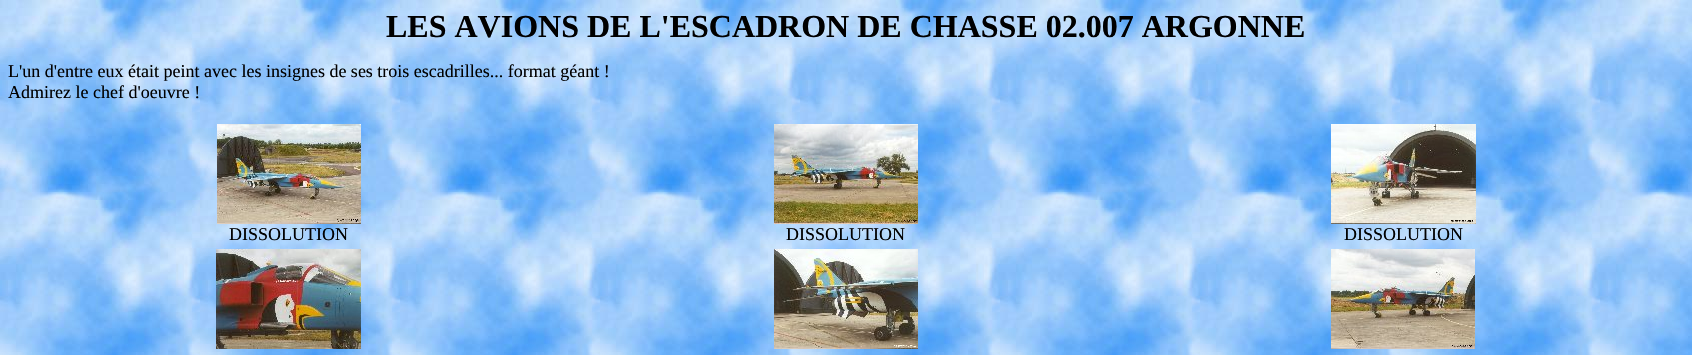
void draw(SkCanvas* canvas) {
    SkPaint paint;
    paint.setAntiAlias(true);
    auto face = [&](const char* family, int weight, float size, bool italic = false) {
        SkFontStyle style(weight, SkFontStyle::kNormal_Width,
            italic ? SkFontStyle::kItalic_Slant : SkFontStyle::kUpright_Slant);
        SkFont result(fontMgr->matchFamilyStyle(family, style), size);
        result.setSubpixel(true);
        return result;
    };
    auto write = [&](const char* s, float x, float y, const SkFont& font, SkColor color) {
        SkPaint ink(SkColor4f::FromColor(color));
        ink.setAntiAlias(true);
        canvas->drawString(s, x, y, font, ink);
    };
    auto paste = [&](const char* path, float x, float y, float w, float h) {
        auto image = SkImages::DeferredFromEncodedData(SkData::MakeFromFileName(path));
        canvas->drawImageRect(image, SkRect::MakeXYWH(x, y, w, h), SkSamplingOptions());
    };
    canvas->clear(SK_ColorWHITE);
    paste("pic1.png", 0, 0, 1692, 355);
    auto kFont1 = face("Liberation Serif", 700, 32);
    write("LES AVIONS DE L'ESCADRON DE CHASSE 02.007 ARGONNE", 386, 37, kFont1, SK_ColorBLACK);
    auto kFont2 = face("Liberation Serif", 400, 18);
    write("L'un d'entre eux était peint avec les insignes de ses trois escadrilles... format géant !", 8, 77, kFont2, SK_ColorBLACK);
    write("Admirez le chef d'oeuvre !", 8, 98, kFont2, SK_ColorBLACK);
    paste("pic2.png", 217, 124, 144, 100);
    write("DISSOLUTION", 229, 240, kFont2, SK_ColorBLACK);
    paste("pic3.png", 774, 124, 144, 100);
    write("DISSOLUTION", 786, 240, kFont2, SK_ColorBLACK);
    paste("pic4.png", 1331, 124, 145, 100);
    write("DISSOLUTION", 1344, 240, kFont2, SK_ColorBLACK);
    paste("pic5.png", 216, 249, 145, 100);
    paste("pic6.png", 774, 249, 144, 100);
    paste("pic7.png", 1331, 249, 144, 100);
}
